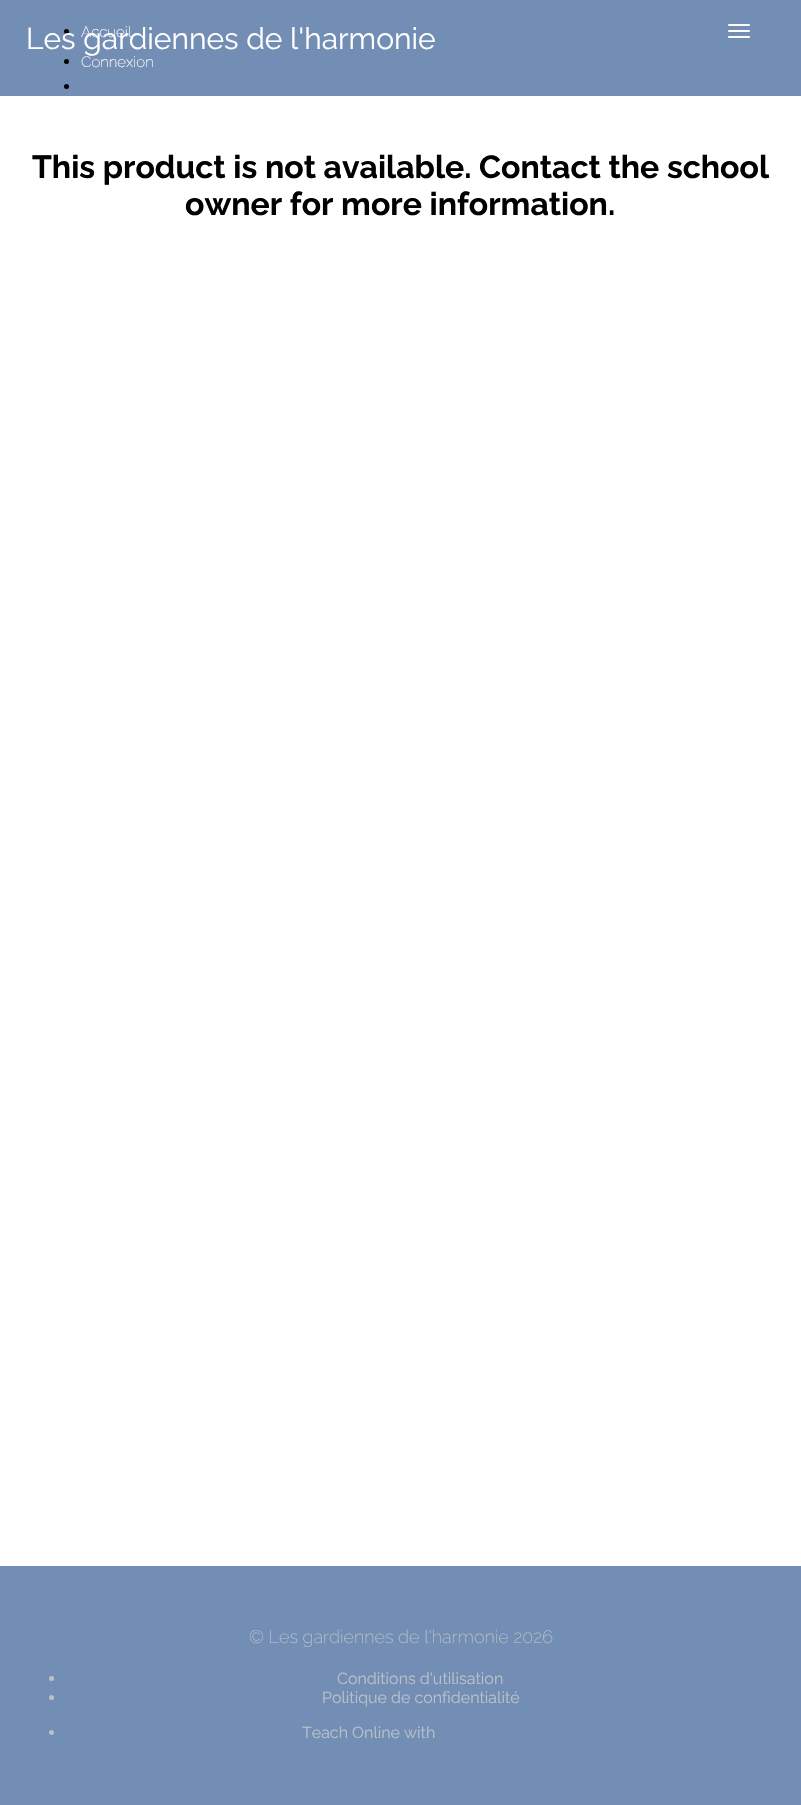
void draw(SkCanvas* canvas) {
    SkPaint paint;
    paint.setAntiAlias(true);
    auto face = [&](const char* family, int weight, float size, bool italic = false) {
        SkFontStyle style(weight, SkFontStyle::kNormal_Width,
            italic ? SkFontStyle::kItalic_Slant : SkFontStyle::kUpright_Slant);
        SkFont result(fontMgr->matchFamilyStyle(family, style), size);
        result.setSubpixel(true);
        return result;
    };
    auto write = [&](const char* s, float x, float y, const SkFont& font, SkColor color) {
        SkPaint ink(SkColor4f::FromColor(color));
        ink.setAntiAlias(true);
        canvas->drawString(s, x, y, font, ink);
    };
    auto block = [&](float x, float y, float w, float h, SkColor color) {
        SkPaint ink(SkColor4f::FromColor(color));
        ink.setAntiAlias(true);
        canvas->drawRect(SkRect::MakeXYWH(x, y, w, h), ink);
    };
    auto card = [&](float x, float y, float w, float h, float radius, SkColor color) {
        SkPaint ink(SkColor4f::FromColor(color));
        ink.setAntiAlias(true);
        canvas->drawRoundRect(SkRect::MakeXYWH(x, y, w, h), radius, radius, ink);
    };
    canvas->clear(SK_ColorWHITE);
    block(0, 0, 801, 96, SkColorSetRGB(115, 142, 181));
    paint.setColor(SK_ColorBLACK);
    canvas->drawCircle(66.5f, 31.5f, 2.5f, paint);
    auto kFont1 = face("Raleway", 200, 15);
    write("Accueil", 81, 37, kFont1, SK_ColorWHITE);
    canvas->drawCircle(66.5f, 61.5f, 2.5f, paint);
    write("Connexion", 81, 67, kFont1, SK_ColorWHITE);
    canvas->drawCircle(66.5f, 86.5f, 2.5f, paint);
    card(728, 24, 22, 2, 1, SK_ColorWHITE);
    card(728, 30, 22, 2, 1, SK_ColorWHITE);
    card(728, 36, 22, 2, 1, SK_ColorWHITE);
    auto kFont2 = face("Raleway", 400, 30);
    write("Les gardiennes de l'harmonie", 26, 49, kFont2, SK_ColorWHITE);
    auto kFont3 = face("Raleway", 700, 32);
    write("This product is not available. Contact the school", 32, 178, kFont3, SK_ColorBLACK);
    write("owner for more information.", 185, 215, kFont3, SK_ColorBLACK);
    block(0, 1566, 801, 239, SkColorSetRGB(115, 142, 181));
    auto kFont4 = face("Raleway", 200, 18);
    write("© Les gardiennes de l'harmonie 2026", 249, 1643, kFont4, SkColorSetRGB(186, 193, 199));
    paint.setColor(SkColorSetRGB(186, 193, 199));
    canvas->drawCircle(51.5f, 1678.5f, 2.5f, paint);
    auto kFont5 = face("Raleway", 400, 16);
    write("Conditions d'utilisation", 337, 1684, kFont5, SkColorSetRGB(186, 193, 199));
    canvas->drawCircle(51.5f, 1697.5f, 2.5f, paint);
    write("Politique de confidentialité", 322, 1703, kFont5, SkColorSetRGB(186, 193, 199));
    canvas->drawCircle(51.5f, 1732.5f, 2.5f, paint);
    write("Teach Online with", 302, 1738, kFont5, SkColorSetRGB(186, 193, 199));
}
